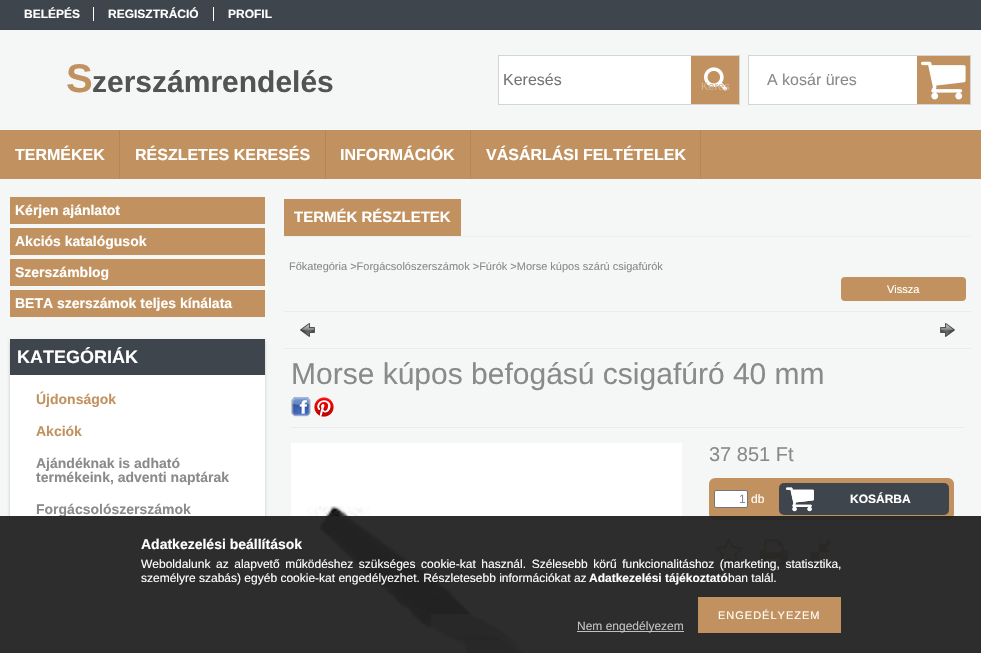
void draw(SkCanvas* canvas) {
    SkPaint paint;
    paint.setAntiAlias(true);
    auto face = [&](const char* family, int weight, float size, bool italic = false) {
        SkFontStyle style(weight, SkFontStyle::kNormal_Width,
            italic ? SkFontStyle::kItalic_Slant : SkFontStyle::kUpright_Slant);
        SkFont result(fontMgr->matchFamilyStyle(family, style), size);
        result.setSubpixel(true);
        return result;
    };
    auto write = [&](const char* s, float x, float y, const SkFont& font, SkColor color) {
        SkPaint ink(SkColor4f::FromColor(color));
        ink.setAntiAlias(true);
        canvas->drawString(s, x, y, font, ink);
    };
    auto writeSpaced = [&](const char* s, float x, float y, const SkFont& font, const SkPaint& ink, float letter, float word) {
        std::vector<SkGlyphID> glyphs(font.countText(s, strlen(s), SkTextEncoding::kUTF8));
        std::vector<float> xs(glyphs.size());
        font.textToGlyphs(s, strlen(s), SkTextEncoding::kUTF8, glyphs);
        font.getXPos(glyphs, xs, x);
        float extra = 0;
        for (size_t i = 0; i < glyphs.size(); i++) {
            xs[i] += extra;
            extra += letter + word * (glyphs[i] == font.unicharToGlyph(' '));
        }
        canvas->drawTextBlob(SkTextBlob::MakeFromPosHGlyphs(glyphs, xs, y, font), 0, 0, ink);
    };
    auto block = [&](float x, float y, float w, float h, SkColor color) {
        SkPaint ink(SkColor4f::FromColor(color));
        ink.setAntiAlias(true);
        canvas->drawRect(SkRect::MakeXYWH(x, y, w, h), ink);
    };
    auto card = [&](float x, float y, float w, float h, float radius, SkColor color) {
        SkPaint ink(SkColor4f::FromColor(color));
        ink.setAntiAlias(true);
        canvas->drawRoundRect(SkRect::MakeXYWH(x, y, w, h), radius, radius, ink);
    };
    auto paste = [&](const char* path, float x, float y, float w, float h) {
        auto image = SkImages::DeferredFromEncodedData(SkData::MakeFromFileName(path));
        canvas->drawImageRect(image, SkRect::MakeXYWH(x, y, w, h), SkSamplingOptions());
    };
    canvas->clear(SkColorSetRGB(245, 246, 246));
    block(0, 0, 981, 30, SkColorSetRGB(62, 69, 76));
    auto kFont1 = face("Liberation Sans", 700, 12);
    write("BELÉPÉS", 24, 18, kFont1, SK_ColorWHITE);
    block(93, 7, 1, 14, SK_ColorWHITE);
    write("REGISZTRÁCIÓ", 108, 18, kFont1, SK_ColorWHITE);
    block(213, 7, 1, 14, SK_ColorWHITE);
    write("PROFIL", 228, 18, kFont1, SK_ColorWHITE);
    auto kFont2 = face("Liberation Sans", 700, 40);
    write("S", 66, 92, kFont2, SkColorSetRGB(193, 146, 96));
    auto kFont3 = face("Liberation Sans", 700, 30);
    write("zerszámrendelés", 92, 92, kFont3, SkColorSetRGB(83, 83, 83));
    block(499, 56, 192, 48, SK_ColorWHITE);
    paint.setStyle(SkPaint::kStroke_Style);
    paint.setStrokeWidth(1);
    paint.setColor(SkColorSetRGB(212, 212, 212));
    canvas->drawRect(SkRect::MakeXYWH(498.5f, 55.5f, 241, 49), paint);
    auto kFont4 = face("Liberation Sans", 400, 16);
    write("Keresés", 503, 85, kFont4, SkColorSetRGB(117, 117, 117));
    block(691, 56, 48, 48, SkColorSetRGB(193, 146, 96));
    paste("pic1.png", 704, 67, 24, 24);
    auto kFont5 = face("Liberation Sans", 400, 11);
    write("Keres", 701, 90, kFont5, SkColorSetRGB(214, 183, 149));
    block(749, 56, 168, 48, SK_ColorWHITE);
    canvas->drawRect(SkRect::MakeXYWH(748.5f, 55.5f, 222, 49), paint);
    write("A kosár üres", 767, 85, kFont4, SkColorSetRGB(139, 138, 138));
    block(917, 56, 53, 48, SkColorSetRGB(193, 146, 96));
    paste("pic2.png", 921, 61, 45, 39);
    block(0, 130, 981, 49, SkColorSetRGB(193, 146, 96));
    block(119, 130, 1, 49, SkColorSetRGB(179, 136, 89));
    auto kFont6 = face("Liberation Sans", 700, 16);
    write("TERMÉKEK", 15, 160, kFont6, SK_ColorWHITE);
    block(325, 130, 1, 49, SkColorSetRGB(179, 136, 89));
    write("RÉSZLETES KERESÉS", 135, 160, kFont6, SK_ColorWHITE);
    block(470, 130, 1, 49, SkColorSetRGB(179, 136, 89));
    write("INFORMÁCIÓK", 340, 160, kFont6, SK_ColorWHITE);
    block(700, 130, 1, 49, SkColorSetRGB(179, 136, 89));
    write("VÁSÁRLÁSI FELTÉTELEK", 486, 160, kFont6, SK_ColorWHITE);
    block(10, 197, 255, 27, SkColorSetRGB(193, 146, 96));
    auto kFont7 = face("Liberation Sans", 700, 14);
    write("Kérjen ajánlatot", 15, 215, kFont7, SK_ColorWHITE);
    block(10, 228, 255, 27, SkColorSetRGB(193, 146, 96));
    write("Akciós katalógusok", 15, 246, kFont7, SK_ColorWHITE);
    block(10, 259, 255, 27, SkColorSetRGB(193, 146, 96));
    write("Szerszámblog", 15, 277, kFont7, SK_ColorWHITE);
    block(10, 290, 255, 27, SkColorSetRGB(193, 146, 96));
    write("BETA szerszámok teljes kínálata", 15, 308, kFont7, SK_ColorWHITE);
    paint.setStyle(SkPaint::kFill_Style);
    paint.setColor(SkColorSetARGB(51, 0, 0, 0));
    paint.setMaskFilter(SkMaskFilter::MakeBlur(kNormal_SkBlurStyle, 1.5f));
    canvas->drawRect(SkRect::MakeXYWH(10, 341, 255, 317), paint);
    paint.setMaskFilter(nullptr);
    block(10, 339, 255, 36, SkColorSetRGB(62, 69, 76));
    auto kFont8 = face("Liberation Sans", 700, 18);
    write("KATEGÓRIÁK", 17, 363, kFont8, SK_ColorWHITE);
    block(10, 375, 255, 278, SK_ColorWHITE);
    write("Újdonságok", 36, 404, kFont7, SkColorSetRGB(193, 146, 96));
    write("Akciók", 36, 436, kFont7, SkColorSetRGB(193, 146, 96));
    write("Ajándéknak is adható", 36, 468, kFont7, SkColorSetRGB(139, 138, 138));
    write("termékeink, adventi naptárak", 36, 482, kFont7, SkColorSetRGB(139, 138, 138));
    write("Forgácsolószerszámok", 36, 514, kFont7, SkColorSetRGB(139, 138, 138));
    block(284, 236, 687, 1, SkColorSetRGB(239, 239, 239));
    block(284, 199, 177, 37, SkColorSetRGB(193, 146, 96));
    auto kFont9 = face("Liberation Sans", 700, 15);
    write("TERMÉK RÉSZLETEK", 294, 222, kFont9, SK_ColorWHITE);
    write("Főkategória >Forgácsolószerszámok >Fúrók >Morse kúpos szárú csigafúrók", 289, 270, kFont5, SkColorSetRGB(139, 138, 138));
    card(841, 277, 125, 24, 4, SkColorSetRGB(193, 146, 96));
    write("Vissza", 887, 293, kFont5, SK_ColorWHITE);
    block(284, 311, 687, 1, SkColorSetRGB(236, 234, 234));
    paste("pic3.png", 300, 323, 15, 14);
    paste("pic4.png", 940, 323, 15, 14);
    block(284, 348, 687, 1, SkColorSetRGB(236, 234, 234));
    block(291, 427, 673, 1, SkColorSetRGB(236, 234, 234));
    auto kFont10 = face("Liberation Sans", 400, 30);
    write("Morse kúpos befogású csigafúró 40 mm", 291, 384, kFont10, SkColorSetRGB(139, 138, 138));
    paste("pic5.png", 291, 397, 20, 20);
    paste("pic6.png", 314, 397, 20, 20);
    paste("pic7.png", 291, 443, 391, 210);
    auto kFont11 = face("Liberation Sans", 400, 20);
    write("37 851 Ft", 709, 461, kFont11, SkColorSetRGB(139, 138, 138));
    card(709, 478, 245, 42, 6, SkColorSetRGB(193, 146, 96));
    paint.setColor(SK_ColorWHITE);
    canvas->drawRoundRect(SkRect::MakeXYWH(714.5f, 490.5f, 33, 17), 1.5f, 1.5f, paint);
    paint.setStyle(SkPaint::kStroke_Style);
    paint.setColor(SkColorSetRGB(118, 118, 118));
    canvas->drawRoundRect(SkRect::MakeXYWH(714.5f, 490.5f, 33, 17), 1.5f, 1.5f, paint);
    auto kFont12 = face("Liberation Sans", 400, 12);
    write("1", 739, 503, kFont12, SkColorSetRGB(139, 138, 138));
    write("db", 751, 503, kFont12, SK_ColorWHITE);
    card(779, 483, 170, 32, 5, SkColorSetRGB(62, 69, 76));
    paste("pic8.png", 786, 487, 28, 25);
    paste("pic9.png", 786, 487, 28, 25);
    write("KOSÁRBA", 850, 503, kFont1, SK_ColorWHITE);
    paint.setColor(SkColorSetRGB(234, 234, 234));
    canvas->drawRect(SkRect::MakeXYWH(709.5f, 532.5f, 39, 39), paint);
    paste("pic10.png", 715, 537, 28, 28);
    canvas->drawRect(SkRect::MakeXYWH(754.5f, 532.5f, 39, 39), paint);
    paste("pic11.png", 760, 539, 28, 27);
    canvas->drawRect(SkRect::MakeXYWH(799.5f, 532.5f, 39, 39), paint);
    paste("pic12.png", 806, 539, 26, 26);
    block(0, 516, 981, 137, SkColorSetARGB(242, 34, 34, 34));
    write("Adatkezelési beállítások", 141, 549, kFont7, SK_ColorWHITE);
    paint.setStyle(SkPaint::kFill_Style);
    paint.setColor(SK_ColorWHITE);
    writeSpaced("Weboldalunk az alapvető működéshez szükséges cookie-kat használ. Szélesebb körű funkcionalitáshoz (marketing, statisztika,", 141, 568, kFont12, paint, 0, 2.25f);
    write("személyre szabás) egyéb cookie-kat engedélyezhet. Részletesebb információkat az", 141, 582, kFont12, SK_ColorWHITE);
    write("Adatkezelési tájékoztató", 589, 582, kFont1, SK_ColorWHITE);
    write("ban talál.", 728, 582, kFont12, SK_ColorWHITE);
    block(698, 597, 143, 36, SkColorSetRGB(193, 146, 96));
    writeSpaced("ENGEDÉLYEZEM", 718, 619, kFont5, paint, 1, 0);
    block(577, 631, 107, 1, SkColorSetRGB(192, 192, 192));
    write("Nem engedélyezem", 577, 630, kFont12, SkColorSetRGB(192, 192, 192));
}
